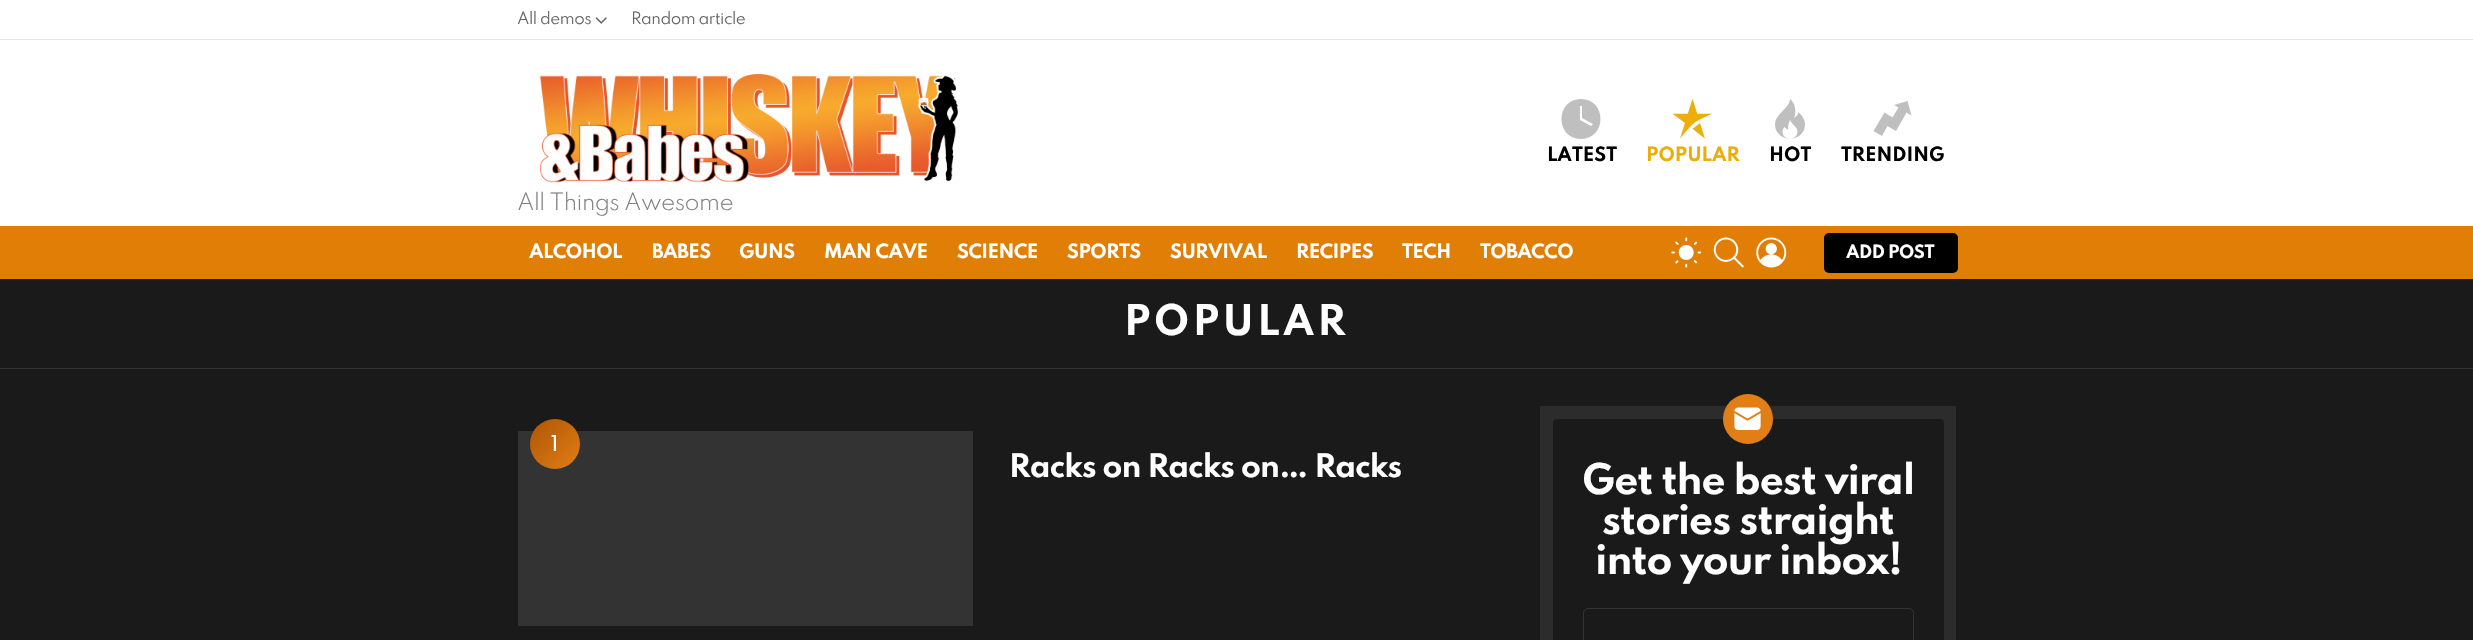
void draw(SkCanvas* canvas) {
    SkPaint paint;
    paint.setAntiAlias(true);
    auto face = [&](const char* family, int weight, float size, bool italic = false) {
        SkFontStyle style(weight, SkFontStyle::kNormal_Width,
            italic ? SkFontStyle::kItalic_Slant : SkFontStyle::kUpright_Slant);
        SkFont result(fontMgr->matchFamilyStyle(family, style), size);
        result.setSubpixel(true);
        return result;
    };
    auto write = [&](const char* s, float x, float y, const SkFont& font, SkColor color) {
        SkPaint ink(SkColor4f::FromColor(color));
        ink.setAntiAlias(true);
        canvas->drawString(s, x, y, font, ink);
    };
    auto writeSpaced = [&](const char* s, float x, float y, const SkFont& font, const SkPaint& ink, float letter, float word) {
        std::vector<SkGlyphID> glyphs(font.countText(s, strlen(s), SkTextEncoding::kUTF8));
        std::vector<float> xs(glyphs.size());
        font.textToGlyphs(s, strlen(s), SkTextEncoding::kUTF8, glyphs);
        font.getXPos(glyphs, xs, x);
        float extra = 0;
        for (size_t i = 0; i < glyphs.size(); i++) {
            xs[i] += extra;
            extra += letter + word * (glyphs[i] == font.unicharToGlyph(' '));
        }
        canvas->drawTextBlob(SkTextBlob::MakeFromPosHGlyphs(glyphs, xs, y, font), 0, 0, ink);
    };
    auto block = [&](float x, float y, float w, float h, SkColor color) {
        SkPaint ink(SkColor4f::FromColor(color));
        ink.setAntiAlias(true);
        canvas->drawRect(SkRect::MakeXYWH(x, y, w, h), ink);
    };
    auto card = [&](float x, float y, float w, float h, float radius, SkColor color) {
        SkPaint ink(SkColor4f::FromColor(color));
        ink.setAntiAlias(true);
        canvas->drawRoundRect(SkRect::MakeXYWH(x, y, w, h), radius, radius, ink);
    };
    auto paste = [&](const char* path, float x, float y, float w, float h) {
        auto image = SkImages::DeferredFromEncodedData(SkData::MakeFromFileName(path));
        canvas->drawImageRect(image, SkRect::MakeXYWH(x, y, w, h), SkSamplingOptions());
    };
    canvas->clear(SkColorSetRGB(26, 26, 26));
    block(0, 0, 2473, 39, SK_ColorWHITE);
    block(0, 39, 2473, 1, SkColorSetRGB(230, 230, 230));
    auto kFont1 = face("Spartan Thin", 400, 15);
    paint.setColor(SkColorSetRGB(102, 102, 102));
    writeSpaced("All demos", 517, 24, kFont1, paint, -0.5f, 0);
    paste("pic1.png", 595, 17, 12, 7);
    writeSpaced("Random article", 631, 24, kFont1, paint, -0.5f, 0);
    block(0, 40, 2473, 186, SK_ColorWHITE);
    paint.setColor(SkColorSetRGB(191, 191, 191));
    canvas->drawPath(SkPathBuilder().moveTo(1581, 99).cubicTo(1555, 99, 1555, 139, 1581, 139).cubicTo(1607, 139, 1607, 99, 1581, 99).close().moveTo(1591, 126).lineTo(1580, 120).lineTo(1580, 106).lineTo(1582, 106).lineTo(1582, 118).lineTo(1593, 124).close().detach(), paint);
    auto kFont2 = face("Spartan Thin", 700, 17.5f);
    write("LATEST", 1547, 161, kFont2, SK_ColorBLACK);
    paste("pic2.png", 1672, 99, 41, 40);
    write("POPULAR", 1646, 161, kFont2, SkColorSetRGB(237, 173, 7));
    paste("pic3.png", 1775, 99, 30, 40);
    write("HOT", 1769, 161, kFont2, SK_ColorBLACK);
    canvas->drawPath(SkPathBuilder().moveTo(1892.5f, 117.5f).lineTo(1898.5f, 107.5f).lineTo(1894, 105).lineTo(1907.5f, 101).lineTo(1911.5f, 115.5f).lineTo(1906.5f, 112.5f).lineTo(1896, 131).lineTo(1887.5f, 126).lineTo(1882, 136).lineTo(1873.5f, 131).lineTo(1884.5f, 112.5f).close().detach(), paint);
    write("TRENDING", 1841, 161, kFont2, SK_ColorBLACK);
    paste("pic4.png", 540, 73, 419, 110);
    auto kFont3 = face("Spartan Thin", 300, 21.25f);
    paint.setColor(SkColorSetRGB(128, 128, 128));
    writeSpaced("All Things Awesome", 517, 210, kFont3, paint, -0.6f, 0);
    block(0, 226, 2473, 53, SkColorSetRGB(225, 126, 5));
    paint.setColor(SK_ColorWHITE);
    writeSpaced("ALCOHOL", 529, 258, kFont2, paint, -0.5f, 0);
    writeSpaced("BABES", 652, 258, kFont2, paint, -0.5f, 0);
    writeSpaced("GUNS", 739, 258, kFont2, paint, -0.5f, 0);
    writeSpaced("MAN CAVE", 824, 258, kFont2, paint, -0.5f, 0);
    writeSpaced("SCIENCE", 957, 258, kFont2, paint, -0.5f, 0);
    writeSpaced("SPORTS", 1067, 258, kFont2, paint, -0.5f, 0);
    writeSpaced("SURVIVAL", 1170, 258, kFont2, paint, -0.5f, 0);
    writeSpaced("RECIPES", 1296, 258, kFont2, paint, -0.5f, 0);
    writeSpaced("TECH", 1402, 258, kFont2, paint, -0.5f, 0);
    writeSpaced("TOBACCO", 1480, 258, kFont2, paint, -0.5f, 0);
    paste("pic5.png", 1671, 237, 30, 31);
    paste("pic6.png", 1713, 237, 31, 31);
    paste("pic7.png", 1756, 237, 31, 31);
    card(1824, 233, 134, 40, 5, SK_ColorBLACK);
    auto kFont4 = face("Spartan Thin", 700, 16.25f);
    writeSpaced("ADD POST", 1846, 258, kFont4, paint, -0.5f, 0);
    auto kFont5 = face("Spartan Thin", 700, 37.5f);
    writeSpaced("POPULAR", 1124, 335, kFont5, paint, 3.5f, 0);
    block(0, 368, 2473, 1, SkColorSetRGB(51, 51, 51));
    block(518, 431, 455, 195, SkColorSetRGB(51, 51, 51));
    {
        const SkColor colors[] = {SkColorSetRGB(225, 126, 21), SkColorSetRGB(174, 85, 6)};
        const float stops[] = {0, 1};
        const SkPoint ends[] = {{580, 469}, {530, 419}};
        paint.setShader(SkGradientShader::MakeLinear(ends, colors, stops, 2, SkTileMode::kClamp));
        paint.setAlpha(255);
    }
    canvas->drawCircle(555, 444, 25, paint);
    auto kFont6 = face("Poppins", 400, 22);
    write("1", 551, 451, kFont6, SK_ColorWHITE);
    auto kFont7 = face("Spartan Thin", 700, 28.75f);
    paint.setShader(nullptr);
    paint.setColor(SK_ColorWHITE);
    writeSpaced("Racks on Racks on… Racks", 1009, 477, kFont7, paint, -0.9f, 0);
    block(1540, 406, 416, 234, SkColorSetRGB(44, 44, 44));
    card(1553, 419, 391, 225, 4, SkColorSetRGB(26, 26, 26));
    paint.setColor(SkColorSetRGB(225, 126, 21));
    canvas->drawCircle(1748, 419, 25, paint);
    paste("pic8.png", 1734, 407, 27, 23);
    paint.setColor(SK_ColorWHITE);
    writeSpaced("Get the best viral", 1582, 494, kFont5, paint, -1.1f, 0);
    writeSpaced("stories straight", 1602, 534, kFont5, paint, -1.1f, 0);
    writeSpaced("into your inbox!", 1595, 574, kFont5, paint, -1.1f, 0);
    paint.setStyle(SkPaint::kStroke_Style);
    paint.setStrokeWidth(1);
    paint.setColor(SkColorSetRGB(51, 51, 51));
    canvas->drawRoundRect(SkRect::MakeXYWH(1583.5f, 608.5f, 330, 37), 4.5f, 4.5f, paint);
}
